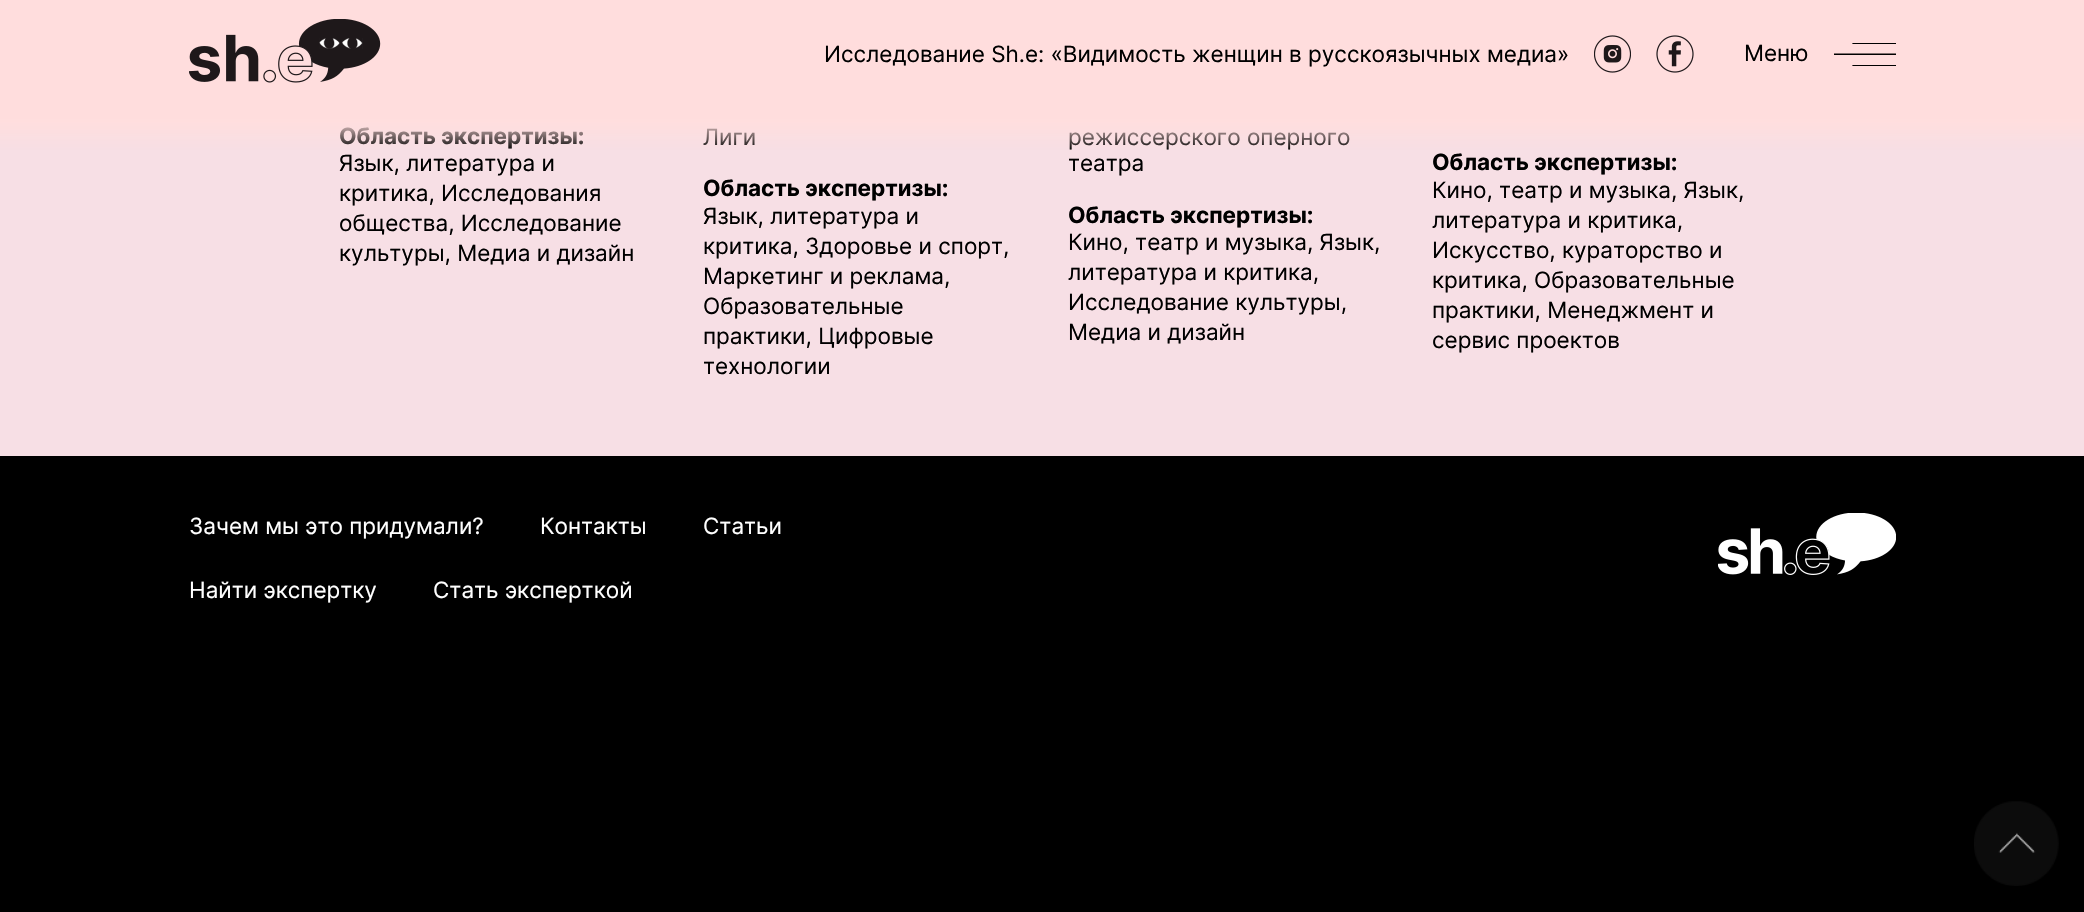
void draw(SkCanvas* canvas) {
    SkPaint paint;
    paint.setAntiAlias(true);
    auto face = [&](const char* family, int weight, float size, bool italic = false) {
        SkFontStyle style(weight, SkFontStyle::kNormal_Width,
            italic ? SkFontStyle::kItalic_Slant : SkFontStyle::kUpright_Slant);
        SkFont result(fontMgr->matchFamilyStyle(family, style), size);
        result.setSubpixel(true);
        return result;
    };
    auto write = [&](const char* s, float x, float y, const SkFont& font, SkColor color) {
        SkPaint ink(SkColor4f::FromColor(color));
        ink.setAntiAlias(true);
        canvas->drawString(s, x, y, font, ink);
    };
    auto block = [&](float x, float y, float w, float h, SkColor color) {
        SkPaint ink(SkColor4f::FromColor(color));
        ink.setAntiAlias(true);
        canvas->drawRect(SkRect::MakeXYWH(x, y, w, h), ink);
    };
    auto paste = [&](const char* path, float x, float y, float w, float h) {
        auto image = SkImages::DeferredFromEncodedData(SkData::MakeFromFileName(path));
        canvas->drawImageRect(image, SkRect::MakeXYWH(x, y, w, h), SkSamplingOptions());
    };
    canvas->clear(SkColorSetRGB(247, 223, 229));
    block(0, 0, 2084, 88, SkColorSetRGB(255, 221, 221));
    paste("pic1.png", 189, 19, 192, 64);
    paste("pic2.png", 319, 38, 44, 11);
    auto kFont1 = face("Inter", 400, 22.5f);
    write("Исследование Sh.e: «Видимость женщин в русскоязычных медиа»", 824, 62, kFont1, SK_ColorBLACK);
    paste("pic3.png", 1594, 35, 37, 38);
    paste("pic4.png", 1656, 35, 38, 38);
    write("Меню", 1744, 61, kFont1, SK_ColorBLACK);
    canvas->save();
    canvas->clipRect(SkRect::MakeXYWH(1834, 43, 62, 23));
    paint.setStyle(SkPaint::kStroke_Style);
    paint.setStrokeWidth(1.2f);
    paint.setColor(SK_ColorBLACK);
    canvas->drawPath(SkPathBuilder().moveTo(1853, 43).lineTo(1896, 43).lineTo(1896, 43.5f).lineTo(1853, 43.5f).close().moveTo(1853, 65.5f).lineTo(1896, 65.5f).lineTo(1896, 66).lineTo(1853, 66).close().moveTo(1834, 54.5f).lineTo(1896, 54.5f).lineTo(1896, 54).lineTo(1834, 54).close().detach(), paint);
    canvas->restore();
    auto kFont2 = face("Inter", 700, 22.5f);
    write("Область экспертизы:", 339, 144, kFont2, SK_ColorBLACK);
    write("Лиги", 703, 145, kFont1, SK_ColorBLACK);
    write("режиссерского оперного", 1068, 145, kFont1, SK_ColorBLACK);
    paint.setStyle(SkPaint::kFill_Style);
    {
        const SkColor colors[] = {SkColorSetRGB(255, 221, 221), SkColorSetARGB(0, 255, 221, 221)};
        const float stops[] = {0.5f, 1};
        const SkPoint ends[] = {{1043, 87}, {1043, 151}};
        paint.setShader(SkGradientShader::MakeLinear(ends, colors, stops, 2, SkTileMode::kClamp));
        paint.setAlpha(255);
    }
    canvas->drawRect(SkRect::MakeXYWH(0, 88, 2084, 62), paint);
    write("Язык, литература и", 339, 171, kFont1, SK_ColorBLACK);
    write("критика, Исследования", 339, 201, kFont1, SK_ColorBLACK);
    write("общества, Исследование", 339, 231, kFont1, SK_ColorBLACK);
    write("культуры, Медиа и дизайн", 339, 261, kFont1, SK_ColorBLACK);
    write("Область экспертизы:", 703, 196, kFont2, SK_ColorBLACK);
    write("Язык, литература и", 703, 224, kFont1, SK_ColorBLACK);
    write("критика, Здоровье и спорт,", 703, 254, kFont1, SK_ColorBLACK);
    write("Маркетинг и реклама,", 703, 284, kFont1, SK_ColorBLACK);
    write("Образовательные", 703, 314, kFont1, SK_ColorBLACK);
    write("практики, Цифровые", 703, 344, kFont1, SK_ColorBLACK);
    write("технологии", 703, 374, kFont1, SK_ColorBLACK);
    write("театра", 1068, 171, kFont1, SK_ColorBLACK);
    write("Область экспертизы:", 1068, 223, kFont2, SK_ColorBLACK);
    write("Кино, театр и музыка, Язык,", 1068, 250, kFont1, SK_ColorBLACK);
    write("литература и критика,", 1068, 280, kFont1, SK_ColorBLACK);
    write("Исследование культуры,", 1068, 310, kFont1, SK_ColorBLACK);
    write("Медиа и дизайн", 1068, 340, kFont1, SK_ColorBLACK);
    write("Область экспертизы:", 1432, 170, kFont2, SK_ColorBLACK);
    write("Кино, театр и музыка, Язык,", 1432, 198, kFont1, SK_ColorBLACK);
    write("литература и критика,", 1432, 228, kFont1, SK_ColorBLACK);
    write("Искусство, кураторство и", 1432, 258, kFont1, SK_ColorBLACK);
    write("критика, Образовательные", 1432, 288, kFont1, SK_ColorBLACK);
    write("практики, Менеджмент и", 1432, 318, kFont1, SK_ColorBLACK);
    write("сервис проектов", 1432, 348, kFont1, SK_ColorBLACK);
    block(0, 456, 2084, 456, SK_ColorBLACK);
    write("Зачем мы это придумали?", 189, 534, kFont1, SK_ColorWHITE);
    write("Контакты", 540, 534, kFont1, SK_ColorWHITE);
    write("Статьи", 703, 534, kFont1, SK_ColorWHITE);
    write("Найти экспертку", 189, 598, kFont1, SK_ColorWHITE);
    write("Стать эксперткой", 433, 598, kFont1, SK_ColorWHITE);
    paste("pic5.png", 1718, 513, 178, 62);
    paste("pic6.png", 1974, 801, 85, 85);
}
